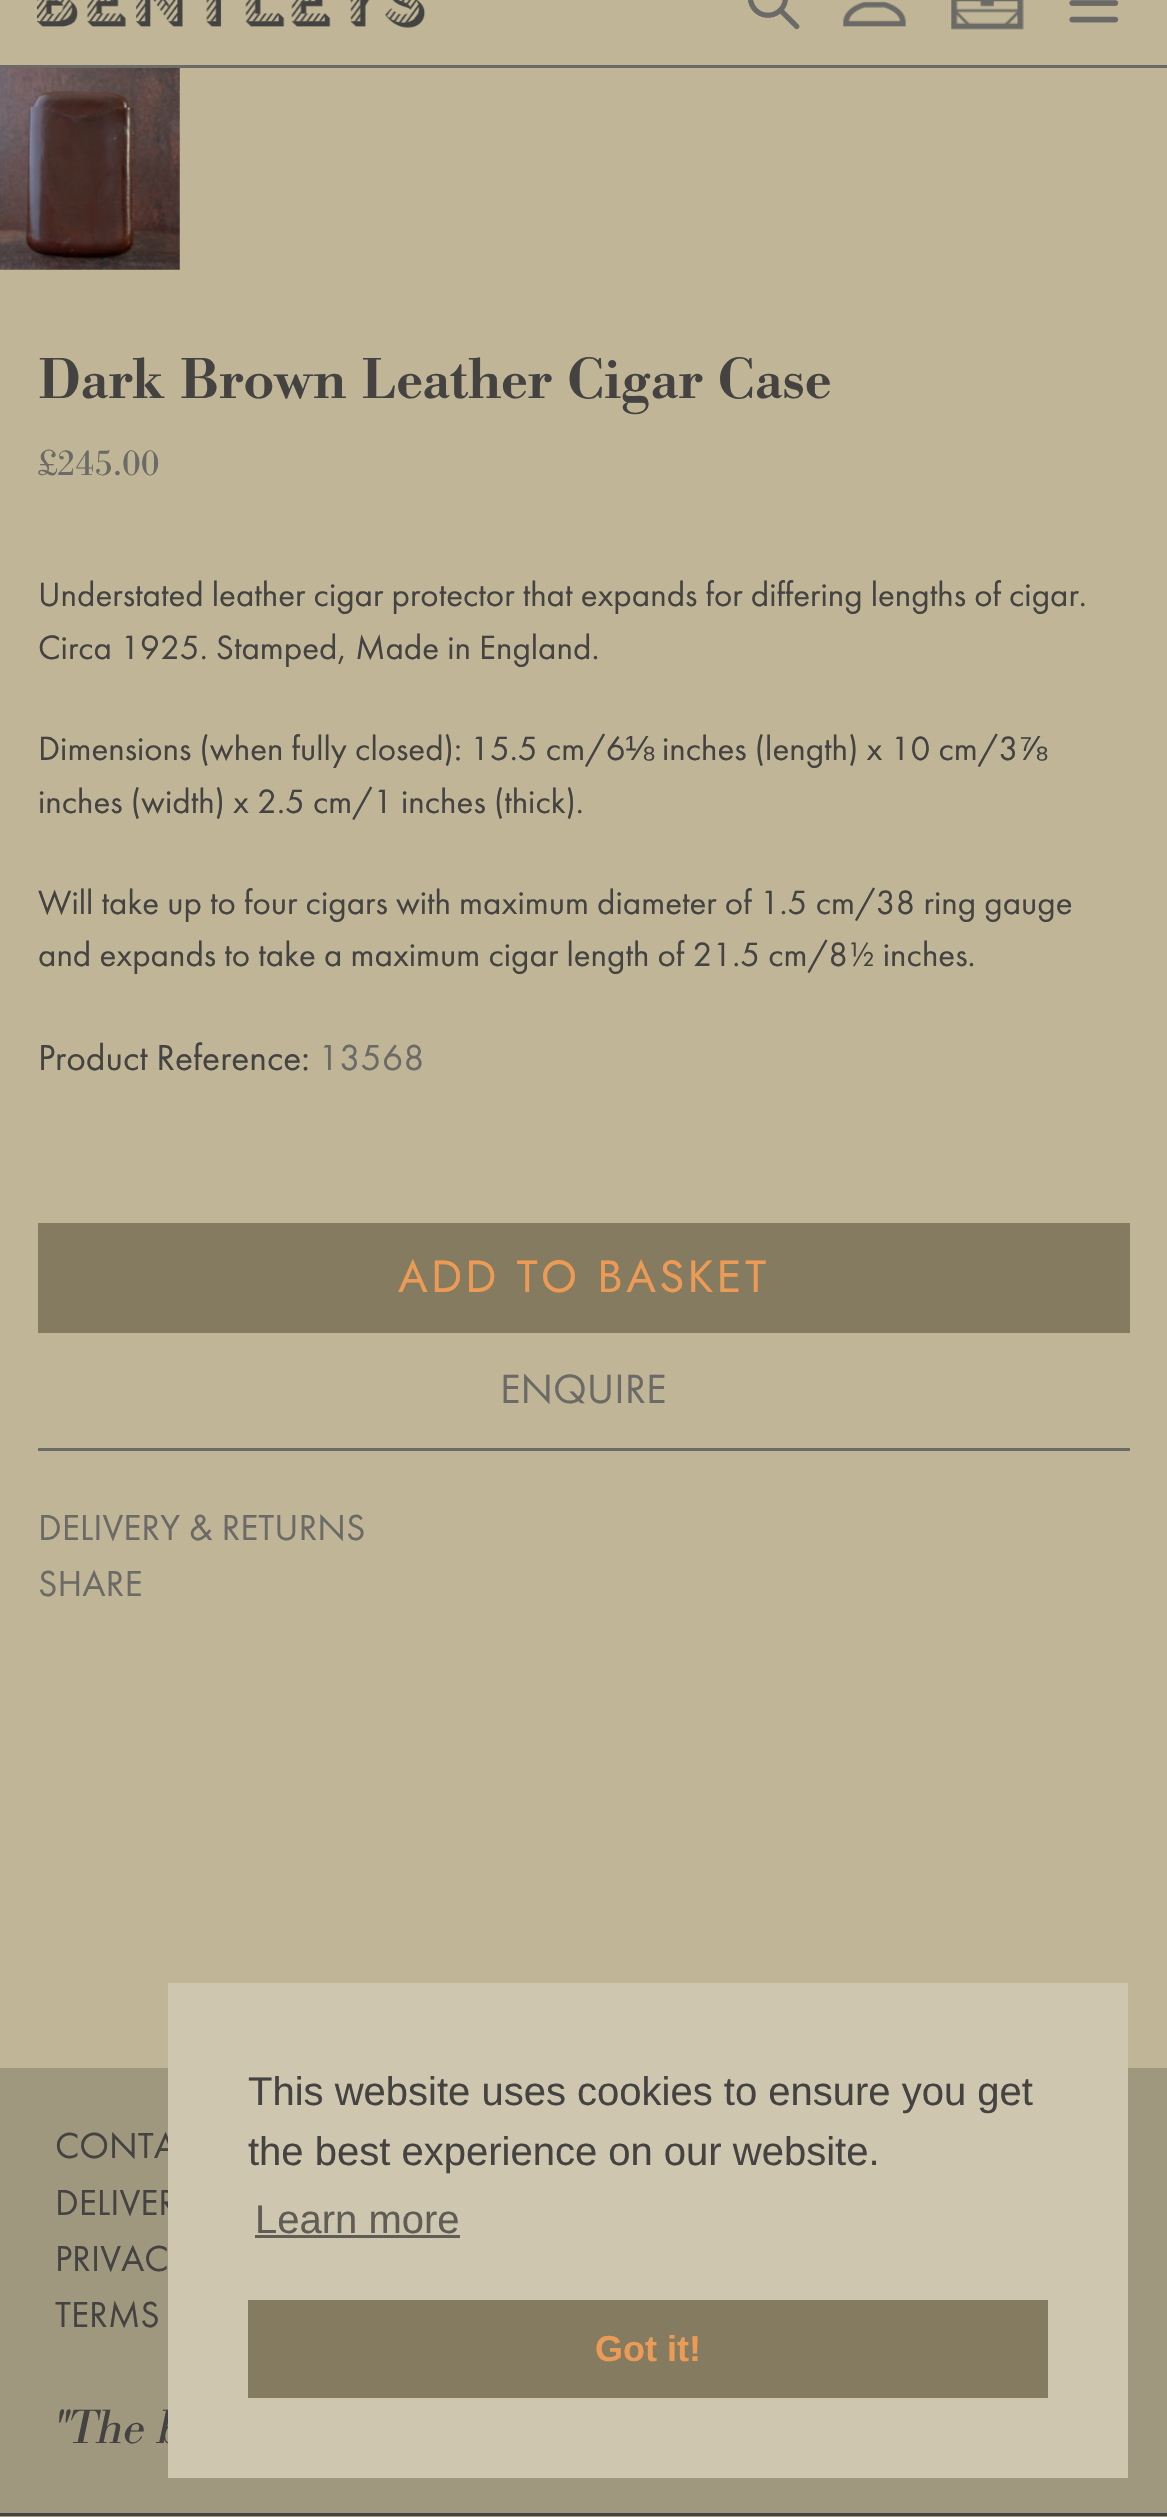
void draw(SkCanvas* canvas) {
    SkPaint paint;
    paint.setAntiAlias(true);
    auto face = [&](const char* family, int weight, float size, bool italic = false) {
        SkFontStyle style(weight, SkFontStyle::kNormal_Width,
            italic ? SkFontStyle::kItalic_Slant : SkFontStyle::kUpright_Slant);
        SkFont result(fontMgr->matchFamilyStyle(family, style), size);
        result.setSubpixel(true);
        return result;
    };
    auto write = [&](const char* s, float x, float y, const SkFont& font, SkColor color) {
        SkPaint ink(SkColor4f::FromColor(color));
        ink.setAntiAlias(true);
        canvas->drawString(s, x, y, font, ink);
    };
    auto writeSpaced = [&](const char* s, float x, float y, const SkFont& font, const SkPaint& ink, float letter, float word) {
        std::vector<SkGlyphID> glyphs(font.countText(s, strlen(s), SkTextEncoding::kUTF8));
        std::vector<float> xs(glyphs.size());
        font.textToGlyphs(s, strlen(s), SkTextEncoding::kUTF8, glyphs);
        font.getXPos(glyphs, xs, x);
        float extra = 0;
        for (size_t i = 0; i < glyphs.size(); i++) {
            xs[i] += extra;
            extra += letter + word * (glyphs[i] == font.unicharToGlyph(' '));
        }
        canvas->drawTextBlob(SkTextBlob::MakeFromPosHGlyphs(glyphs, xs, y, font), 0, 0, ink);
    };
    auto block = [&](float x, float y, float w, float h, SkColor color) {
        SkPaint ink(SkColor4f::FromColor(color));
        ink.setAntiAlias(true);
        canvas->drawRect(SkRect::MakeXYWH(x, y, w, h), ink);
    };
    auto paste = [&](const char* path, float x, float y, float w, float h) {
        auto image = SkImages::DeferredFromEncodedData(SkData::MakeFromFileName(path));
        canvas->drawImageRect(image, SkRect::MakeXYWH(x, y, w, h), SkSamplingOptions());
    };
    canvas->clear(SkColorSetRGB(192, 182, 151));
    block(0, 65, 1167, 3, SkColorSetRGB(107, 106, 102));
    paste("pic1.png", 37, 0, 388, 28);
    paste("pic2.png", 748, 0, 52, 30);
    paste("pic3.png", 843, 1, 63, 26);
    paste("pic4.png", 951, 0, 73, 30);
    paste("pic5.png", 1069, 0, 50, 23);
    paste("pic6.png", 0, 68, 180, 202);
    auto kFont1 = face("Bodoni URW", 500, 60);
    write("Dark Brown Leather Cigar Case", 38, 398, kFont1, SkColorSetRGB(68, 67, 65));
    auto kFont2 = face("Bodoni URW", 400, 37.5f);
    write("£245.00", 38, 475, kFont2, SkColorSetRGB(107, 106, 102));
    auto kFont3 = face("Futura PT", 400, 35);
    write("Understated leather cigar protector that expands for differing lengths of cigar.", 38, 606, kFont3, SkColorSetRGB(68, 67, 65));
    write("Circa 1925. Stamped, Made in England.", 38, 659, kFont3, SkColorSetRGB(68, 67, 65));
    write("Dimensions (when fully closed): 15.5 cm/6", 38, 760, kFont3, SkColorSetRGB(68, 67, 65));
    auto kFont4 = face("Liberation Sans", 400, 35);
    write("⅛", 625, 760, kFont4, SkColorSetRGB(68, 67, 65));
    write("inches (length) x 10 cm/3", 662, 760, kFont3, SkColorSetRGB(68, 67, 65));
    write("⅞", 1018, 760, kFont4, SkColorSetRGB(68, 67, 65));
    write("inches (width) x 2.5 cm/1 inches (thick).", 38, 813, kFont3, SkColorSetRGB(68, 67, 65));
    write("Will take up to four cigars with maximum diameter of 1.5 cm/38 ring gauge", 38, 914, kFont3, SkColorSetRGB(68, 67, 65));
    write("and expands to take a maximum cigar length of 21.5 cm/8½ inches.", 38, 966, kFont3, SkColorSetRGB(68, 67, 65));
    auto kFont5 = face("Futura PT", 400, 37.5f);
    write("Product Reference:", 38, 1070, kFont5, SkColorSetRGB(68, 67, 65));
    write("13568", 318, 1070, kFont5, SkColorSetRGB(107, 106, 102));
    block(38, 1223, 1092, 110, SkColorSetRGB(132, 123, 96));
    auto kFont6 = face("Jost", 400, 45);
    paint.setColor(SkColorSetRGB(235, 155, 85));
    writeSpaced("ADD TO BASKET", 398, 1292, kFont6, paint, 3.6f, 0);
    block(38, 1448, 1092, 3, SkColorSetRGB(107, 106, 102));
    auto kFont7 = face("Futura PT", 400, 42.5f);
    write("ENQUIRE", 500, 1403, kFont7, SkColorSetRGB(107, 106, 102));
    write("DELIVERY & RETURNS", 38, 1540, kFont5, SkColorSetRGB(107, 106, 102));
    write("SHARE", 38, 1596, kFont5, SkColorSetRGB(107, 106, 102));
    block(0, 2068, 1167, 449, SkColorSetRGB(159, 151, 126));
    write("CONTA", 55, 2158, kFont5, SkColorSetRGB(68, 67, 65));
    write("DELIVER", 55, 2215, kFont5, SkColorSetRGB(68, 67, 65));
    write("PRIVAC", 55, 2271, kFont5, SkColorSetRGB(68, 67, 65));
    write("TERMS", 55, 2327, kFont5, SkColorSetRGB(68, 67, 65));
    auto kFont8 = face("Bodoni URW", 400, 50, true);
    write("\"The b", 55, 2443, kFont8, SkColorSetRGB(68, 67, 65));
    block(0, 2513, 1167, 3, SkColorSetRGB(68, 67, 65));
    block(168, 1983, 960, 495, SkColorSetRGB(206, 198, 174));
    auto kFont9 = face("Liberation Sans", 400, 40);
    write("This website uses cookies to ensure you get", 248, 2105, kFont9, SkColorSetRGB(68, 67, 65));
    write("the best experience on our website.", 248, 2165, kFont9, SkColorSetRGB(68, 67, 65));
    write("Learn more", 255, 2233, kFont9, SkColorSetRGB(96, 93, 87));
    block(255, 2235, 205, 3, SkColorSetRGB(96, 93, 87));
    block(248, 2300, 800, 98, SkColorSetRGB(132, 123, 96));
    auto kFont10 = face("Liberation Sans", 700, 36);
    write("Got it!", 595, 2361, kFont10, SkColorSetRGB(235, 155, 85));
}
